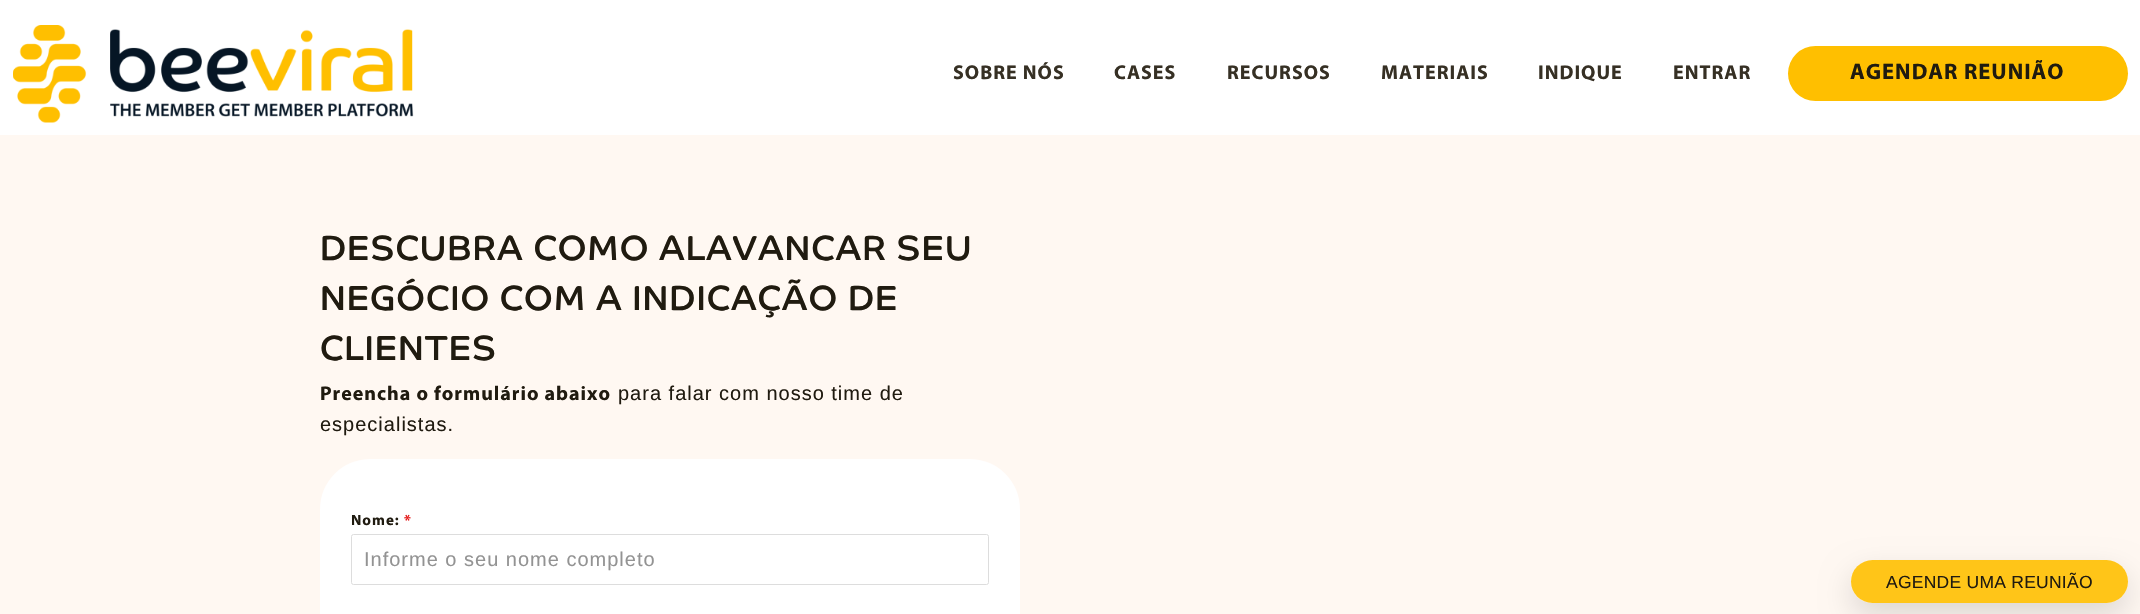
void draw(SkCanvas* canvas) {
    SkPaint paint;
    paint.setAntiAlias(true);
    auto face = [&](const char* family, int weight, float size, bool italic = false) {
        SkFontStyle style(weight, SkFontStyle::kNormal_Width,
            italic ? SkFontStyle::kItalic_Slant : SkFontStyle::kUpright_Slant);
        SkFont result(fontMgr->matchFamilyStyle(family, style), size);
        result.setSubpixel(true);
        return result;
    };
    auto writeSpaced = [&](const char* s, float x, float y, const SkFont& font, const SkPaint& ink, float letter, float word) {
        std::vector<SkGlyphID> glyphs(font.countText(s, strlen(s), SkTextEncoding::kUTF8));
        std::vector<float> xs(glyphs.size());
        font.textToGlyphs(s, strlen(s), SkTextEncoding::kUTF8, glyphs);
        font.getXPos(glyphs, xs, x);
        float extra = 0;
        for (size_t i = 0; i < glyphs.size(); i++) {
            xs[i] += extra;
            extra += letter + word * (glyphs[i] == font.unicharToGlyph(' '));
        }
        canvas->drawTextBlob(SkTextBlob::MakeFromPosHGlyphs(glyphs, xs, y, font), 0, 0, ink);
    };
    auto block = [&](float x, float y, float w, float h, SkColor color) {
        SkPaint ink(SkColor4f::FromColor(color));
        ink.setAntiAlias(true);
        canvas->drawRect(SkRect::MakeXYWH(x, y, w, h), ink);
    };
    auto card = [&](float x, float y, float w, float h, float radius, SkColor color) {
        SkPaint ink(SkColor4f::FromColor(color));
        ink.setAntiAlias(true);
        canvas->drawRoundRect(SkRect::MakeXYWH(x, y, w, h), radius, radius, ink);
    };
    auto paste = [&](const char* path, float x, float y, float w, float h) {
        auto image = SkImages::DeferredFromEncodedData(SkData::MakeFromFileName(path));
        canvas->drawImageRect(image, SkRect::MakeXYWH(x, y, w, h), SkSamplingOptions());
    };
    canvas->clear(SK_ColorWHITE);
    paste("pic1.png", 13, 25, 401, 98);
    auto kFont1 = face("Myriad", 700, 20);
    paint.setColor(SkColorSetRGB(54, 48, 36));
    writeSpaced("SOBRE NÓS", 953, 79, kFont1, paint, 1, 0);
    writeSpaced("CASES", 1114, 79, kFont1, paint, 1, 0);
    writeSpaced("RECURSOS", 1227, 79, kFont1, paint, 1, 0);
    writeSpaced("MATERIAIS", 1381, 79, kFont1, paint, 1, 0);
    writeSpaced("INDIQUE", 1538, 79, kFont1, paint, 1, 0);
    writeSpaced("ENTRAR", 1673, 79, kFont1, paint, 1, 0);
    card(1788, 46, 340, 55, 27.5f, SkColorSetRGB(255, 191, 0));
    auto kFont2 = face("Myriad", 700, 22.5f);
    paint.setColor(SkColorSetRGB(32, 27, 16));
    writeSpaced("AGENDAR REUNIÃO", 1850, 79, kFont2, paint, 1, 0);
    block(0, 135, 2140, 479, SkColorSetRGB(255, 248, 242));
    auto kFont3 = face("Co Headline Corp", 400, 35);
    writeSpaced("DESCUBRA COMO ALAVANCAR SEU", 320, 260, kFont3, paint, 1, 0);
    writeSpaced("NEGÓCIO COM A INDICAÇÃO DE", 320, 310, kFont3, paint, 1, 0);
    writeSpaced("CLIENTES", 320, 360, kFont3, paint, 1, 0);
    writeSpaced("Preencha o formulário abaixo", 320, 400, kFont1, paint, 1, 0);
    auto kFont4 = face("Liberation Sans", 400, 20);
    writeSpaced("para falar com nosso time de", 618, 400, kFont4, paint, 1, 0);
    writeSpaced("especialistas.", 320, 431, kFont4, paint, 1, 0);
    card(320, 459, 700, 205, 50, SK_ColorWHITE);
    auto kFont5 = face("Myriad", 700, 15);
    writeSpaced("Nome:", 351, 525, kFont5, paint, 1, 0);
    paint.setColor(SkColorSetRGB(229, 25, 25));
    writeSpaced("*", 404, 525, kFont5, paint, 1, 0);
    paint.setStyle(SkPaint::kStroke_Style);
    paint.setStrokeWidth(1);
    paint.setColor(SkColorSetRGB(221, 221, 221));
    canvas->drawRoundRect(SkRect::MakeXYWH(351.5f, 534.5f, 637, 50), 2, 2, paint);
    paint.setStyle(SkPaint::kFill_Style);
    paint.setColor(SkColorSetRGB(147, 147, 147));
    writeSpaced("Informe o seu nome completo", 364, 566, kFont4, paint, 1, 0);
    canvas->save();
    canvas->clipPath(SkPathBuilder(SkPathFillType::kEvenOdd).moveTo(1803, 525).lineTo(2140, 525).lineTo(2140, 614).lineTo(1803, 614).close().moveTo(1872.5f, 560).lineTo(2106.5f, 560).cubicTo(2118.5f, 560, 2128, 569.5f, 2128, 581.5f).cubicTo(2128, 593.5f, 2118.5f, 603, 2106.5f, 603).lineTo(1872.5f, 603).cubicTo(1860.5f, 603, 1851, 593.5f, 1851, 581.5f).cubicTo(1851, 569.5f, 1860.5f, 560, 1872.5f, 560).close().detach(), true);
    paint.setColor(SkColorSetARGB(36, 0, 0, 0));
    paint.setMaskFilter(SkMaskFilter::MakeBlur(kNormal_SkBlurStyle, 15.5f));
    canvas->drawRoundRect(SkRect::MakeXYWH(1851, 573, 277, 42), 21, 21, paint);
    paint.setMaskFilter(nullptr);
    canvas->restore();
    card(1851, 560, 277, 43, 21.5f, SkColorSetARGB(230, 255, 191, 0));
    auto kFont6 = face("Liberation Sans", 400, 17.5f);
    paint.setColor(SkColorSetRGB(32, 27, 16));
    writeSpaced("AGENDE UMA REUNIÃO", 1886, 588, kFont6, paint, 0.25f, 0);
}
